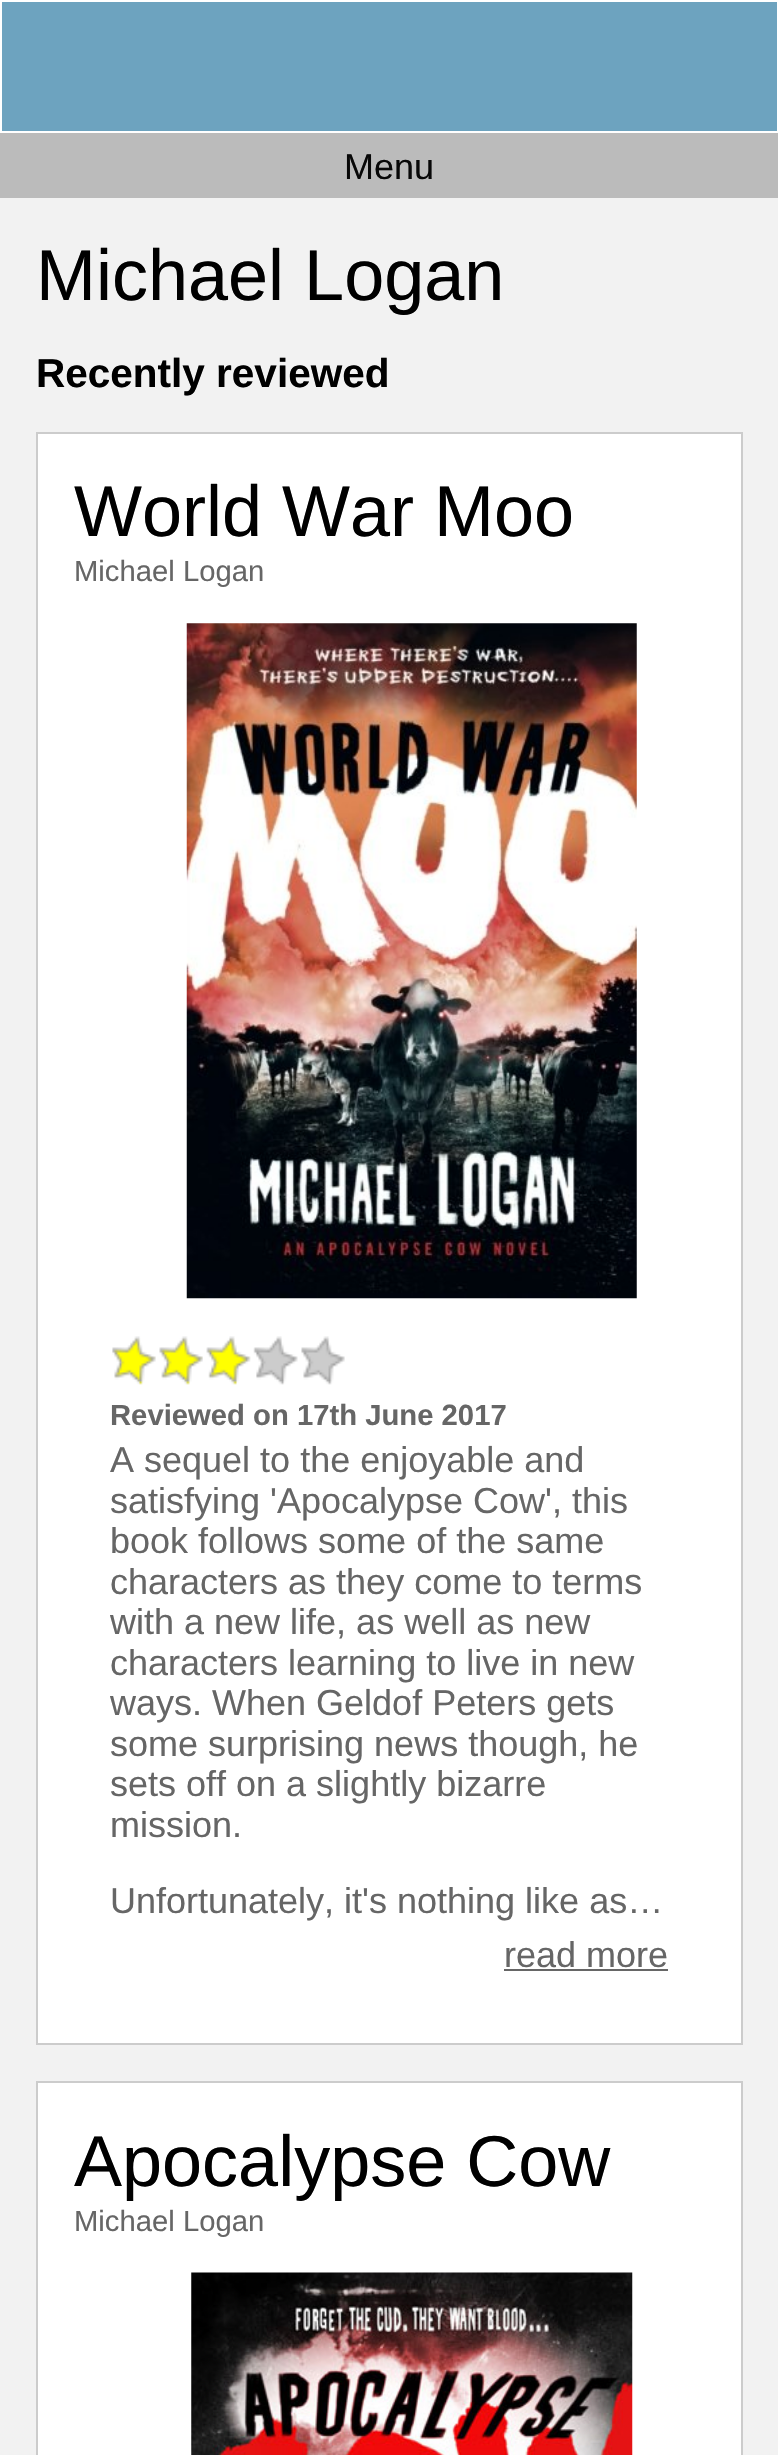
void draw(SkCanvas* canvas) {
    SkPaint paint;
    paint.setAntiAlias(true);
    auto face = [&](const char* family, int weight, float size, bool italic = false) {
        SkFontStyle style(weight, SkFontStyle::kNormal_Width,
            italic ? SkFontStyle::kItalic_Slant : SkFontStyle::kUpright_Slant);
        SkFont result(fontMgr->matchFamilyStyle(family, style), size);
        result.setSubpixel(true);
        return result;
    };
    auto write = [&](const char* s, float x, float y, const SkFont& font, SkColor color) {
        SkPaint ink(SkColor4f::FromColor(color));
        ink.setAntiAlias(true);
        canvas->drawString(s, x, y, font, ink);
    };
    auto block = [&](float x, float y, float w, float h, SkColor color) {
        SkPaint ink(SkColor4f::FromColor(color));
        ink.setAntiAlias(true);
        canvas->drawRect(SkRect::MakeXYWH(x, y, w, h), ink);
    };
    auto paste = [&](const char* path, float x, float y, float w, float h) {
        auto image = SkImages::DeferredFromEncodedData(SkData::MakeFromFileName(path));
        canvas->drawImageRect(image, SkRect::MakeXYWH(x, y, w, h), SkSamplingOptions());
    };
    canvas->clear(SkColorSetRGB(242, 242, 242));
    block(0, 133, 778, 65, SkColorSetRGB(187, 187, 187));
    paint.setColor(SkColorSetRGB(109, 163, 191));
    canvas->drawRect(SkRect::MakeXYWH(1, 1, 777, 131), paint);
    paint.setStyle(SkPaint::kStroke_Style);
    paint.setStrokeWidth(2);
    paint.setColor(SK_ColorWHITE);
    canvas->drawRect(SkRect::MakeXYWH(1, 1, 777, 131), paint);
    auto kFont1 = face("Liberation Sans", 400, 36);
    write("Menu", 344, 179, kFont1, SkColorSetRGB(8, 8, 8));
    auto kFont2 = face("Liberation Sans", 400, 72);
    write("Michael Logan", 36, 300, kFont2, SK_ColorBLACK);
    auto kFont3 = face("Liberation Sans", 700, 40.5f);
    write("Recently reviewed", 36, 387, kFont3, SK_ColorBLACK);
    paint.setStyle(SkPaint::kFill_Style);
    canvas->drawRect(SkRect::MakeXYWH(37, 433, 705, 1611), paint);
    paint.setStyle(SkPaint::kStroke_Style);
    paint.setColor(SkColorSetRGB(204, 204, 204));
    canvas->drawRect(SkRect::MakeXYWH(37, 433, 705, 1611), paint);
    write("World War Moo", 74, 536, kFont2, SK_ColorBLACK);
    auto kFont4 = face("Liberation Sans", 400, 29.25f);
    write("Michael Logan", 74, 581, kFont4, SkColorSetRGB(102, 102, 102));
    paste("pic1.png", 186, 623, 451, 676);
    paste("pic2.png", 112, 1336, 44, 49);
    paste("pic3.png", 159, 1336, 44, 49);
    paste("pic4.png", 206, 1336, 45, 49);
    paste("pic5.png", 253, 1336, 45, 49);
    paste("pic6.png", 301, 1336, 44, 49);
    auto kFont5 = face("Liberation Sans", 700, 29.25f);
    write("Reviewed on 17th June 2017", 110, 1425, kFont5, SkColorSetRGB(102, 102, 102));
    write("A sequel to the enjoyable and", 110, 1472, kFont1, SkColorSetRGB(102, 102, 102));
    write("satisfying 'Apocalypse Cow', this", 110, 1513, kFont1, SkColorSetRGB(102, 102, 102));
    write("book follows some of the same", 110, 1553, kFont1, SkColorSetRGB(102, 102, 102));
    write("characters as they come to terms", 110, 1594, kFont1, SkColorSetRGB(102, 102, 102));
    write("with a new life, as well as new", 110, 1634, kFont1, SkColorSetRGB(102, 102, 102));
    write("characters learning to live in new", 110, 1675, kFont1, SkColorSetRGB(102, 102, 102));
    write("ways. When Geldof Peters gets", 110, 1715, kFont1, SkColorSetRGB(102, 102, 102));
    write("some surprising news though, he", 110, 1756, kFont1, SkColorSetRGB(102, 102, 102));
    write("sets off on a slightly bizarre", 110, 1796, kFont1, SkColorSetRGB(102, 102, 102));
    write("mission.", 110, 1837, kFont1, SkColorSetRGB(102, 102, 102));
    write("Unfortunately, it's nothing like as…", 110, 1913, kFont1, SkColorSetRGB(102, 102, 102));
    write("read more", 504, 1967, kFont1, SkColorSetRGB(102, 102, 102));
    block(504, 1969, 164, 2, SkColorSetRGB(102, 102, 102));
    paint.setStyle(SkPaint::kFill_Style);
    paint.setColor(SK_ColorWHITE);
    canvas->drawRect(SkRect::MakeXYWH(37, 2082, 705, 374), paint);
    paint.setStyle(SkPaint::kStroke_Style);
    paint.setColor(SkColorSetRGB(204, 204, 204));
    canvas->drawRect(SkRect::MakeXYWH(37, 2082, 705, 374), paint);
    write("Apocalypse Cow", 74, 2186, kFont2, SK_ColorBLACK);
    write("Michael Logan", 74, 2231, kFont4, SkColorSetRGB(102, 102, 102));
    paste("pic7.png", 191, 2272, 442, 183);
}
